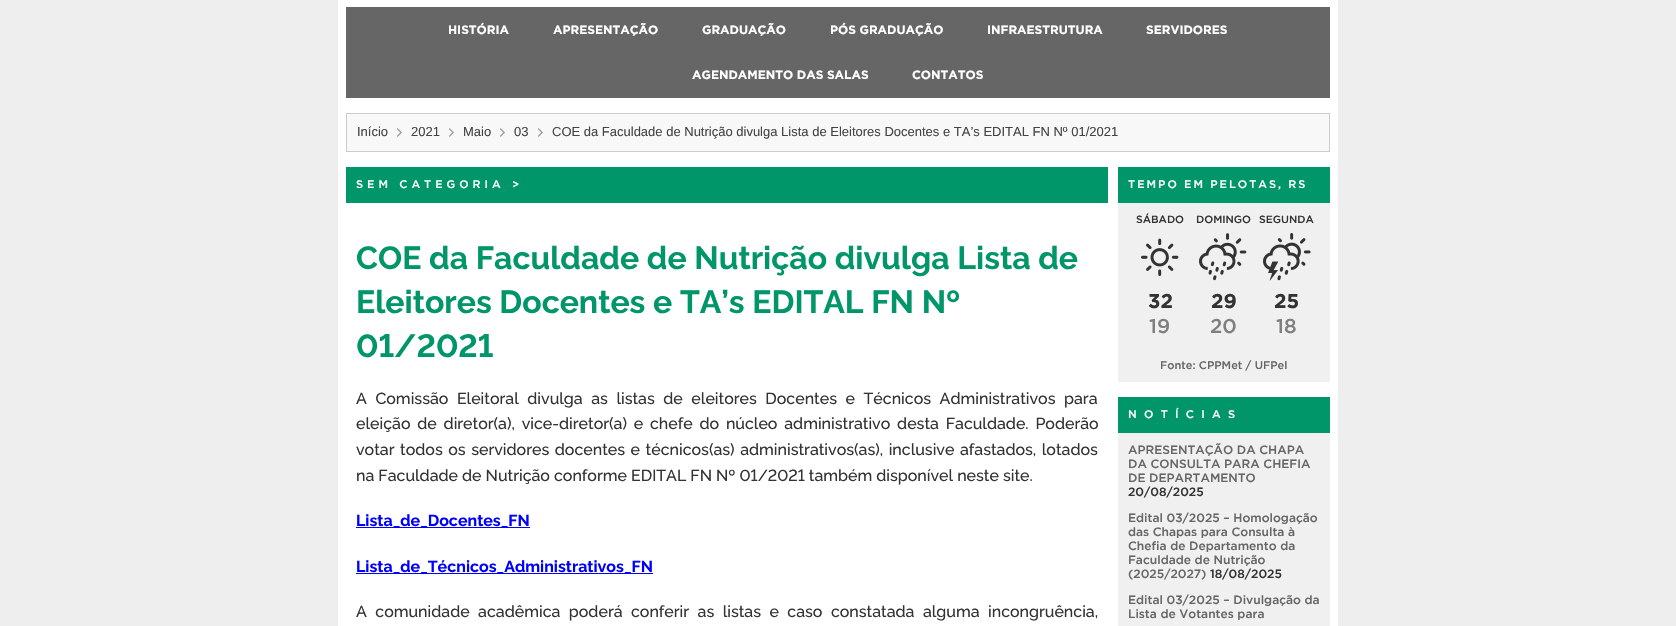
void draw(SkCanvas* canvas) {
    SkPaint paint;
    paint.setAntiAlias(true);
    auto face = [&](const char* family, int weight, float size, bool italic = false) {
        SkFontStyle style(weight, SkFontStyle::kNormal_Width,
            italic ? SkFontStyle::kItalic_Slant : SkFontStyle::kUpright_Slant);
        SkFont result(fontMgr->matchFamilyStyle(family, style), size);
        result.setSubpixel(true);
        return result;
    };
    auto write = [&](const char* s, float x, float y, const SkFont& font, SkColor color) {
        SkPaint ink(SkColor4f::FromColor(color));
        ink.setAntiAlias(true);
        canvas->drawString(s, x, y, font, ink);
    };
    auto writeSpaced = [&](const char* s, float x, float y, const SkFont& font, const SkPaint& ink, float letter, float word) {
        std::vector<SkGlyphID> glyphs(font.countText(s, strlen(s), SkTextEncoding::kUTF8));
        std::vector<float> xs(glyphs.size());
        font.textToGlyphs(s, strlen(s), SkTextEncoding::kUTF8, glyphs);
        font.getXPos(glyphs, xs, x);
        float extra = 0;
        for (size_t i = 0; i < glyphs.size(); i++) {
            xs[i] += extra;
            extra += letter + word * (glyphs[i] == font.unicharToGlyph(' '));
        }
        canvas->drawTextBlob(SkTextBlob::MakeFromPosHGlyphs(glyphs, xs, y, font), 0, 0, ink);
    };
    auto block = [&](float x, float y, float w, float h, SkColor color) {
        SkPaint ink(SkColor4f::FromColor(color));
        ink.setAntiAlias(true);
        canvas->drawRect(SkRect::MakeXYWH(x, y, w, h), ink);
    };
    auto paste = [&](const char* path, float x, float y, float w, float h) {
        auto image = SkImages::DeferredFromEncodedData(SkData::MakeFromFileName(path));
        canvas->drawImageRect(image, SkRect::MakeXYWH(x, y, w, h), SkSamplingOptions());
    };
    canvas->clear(SkColorSetRGB(238, 238, 238));
    block(338, 0, 1000, 626, SK_ColorWHITE);
    block(346, 7, 984, 91, SkColorSetRGB(102, 102, 102));
    auto kFont1 = face("Gotham", 700, 12);
    write("HISTÓRIA", 448, 34, kFont1, SK_ColorWHITE);
    write("APRESENTAÇÃO", 553, 34, kFont1, SK_ColorWHITE);
    write("GRADUAÇÃO", 702, 34, kFont1, SK_ColorWHITE);
    write("PÓS GRADUAÇÃO", 830, 34, kFont1, SK_ColorWHITE);
    write("INFRAESTRUTURA", 987, 34, kFont1, SK_ColorWHITE);
    write("SERVIDORES", 1146, 34, kFont1, SK_ColorWHITE);
    write("AGENDAMENTO DAS SALAS", 692, 79, kFont1, SK_ColorWHITE);
    write("CONTATOS", 912, 79, kFont1, SK_ColorWHITE);
    paint.setColor(SkColorSetRGB(248, 248, 248));
    canvas->drawRect(SkRect::MakeXYWH(346.5f, 113.5f, 983, 38), paint);
    paint.setStyle(SkPaint::kStroke_Style);
    paint.setStrokeWidth(1);
    paint.setColor(SkColorSetRGB(204, 204, 204));
    canvas->drawRect(SkRect::MakeXYWH(346.5f, 113.5f, 983, 38), paint);
    auto kFont2 = face("Liberation Sans", 400, 13);
    write("Início", 357, 136, kFont2, SkColorSetRGB(68, 68, 68));
    paste("pic1.png", 397, 128, 5, 9);
    write("2021", 411, 136, kFont2, SkColorSetRGB(68, 68, 68));
    paste("pic1.png", 449, 128, 5, 9);
    write("Maio", 463, 136, kFont2, SkColorSetRGB(68, 68, 68));
    paste("pic1.png", 500, 128, 5, 9);
    write("03", 514, 136, kFont2, SkColorSetRGB(68, 68, 68));
    paste("pic1.png", 538, 128, 5, 9);
    write("COE da Faculdade de Nutrição divulga Lista de Eleitores Docentes e TA’s EDITAL FN Nº 01/2021", 552, 136, kFont2, SkColorSetRGB(68, 68, 68));
    block(346, 167, 762, 36, SkColorSetRGB(0, 150, 105));
    auto kFont3 = face("Gotham", 500, 11);
    paint.setStyle(SkPaint::kFill_Style);
    paint.setColor(SK_ColorWHITE);
    writeSpaced("SEM CATEGORIA >", 356, 188, kFont3, paint, 4, 0);
    auto kFont4 = face("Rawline", 700, 32);
    write("COE da Faculdade de Nutrição divulga Lista de", 356, 269, kFont4, SkColorSetRGB(0, 150, 105));
    write("Eleitores Docentes e TA’s EDITAL FN Nº", 356, 313, kFont4, SkColorSetRGB(0, 150, 105));
    write("01/2021", 356, 357, kFont4, SkColorSetRGB(0, 150, 105));
    auto kFont5 = face("Rawline", 500, 16);
    paint.setColor(SkColorSetRGB(51, 51, 51));
    writeSpaced("A Comissão Eleitoral divulga as listas de eleitores Docentes e Técnicos Administrativos para", 356, 404, kFont5, paint, 0, 4.5f);
    writeSpaced("eleição de diretor(a), vice-diretor(a) e chefe do núcleo administrativo desta Faculdade. Poderão", 356, 429, kFont5, paint, 0, 2.75f);
    writeSpaced("votar todos os servidores docentes e técnicos(as) administrativos(as), inclusive afastados, lotados", 356, 455, kFont5, paint, 0, 1.5f);
    write("na Faculdade de Nutrição conforme EDITAL FN Nº 01/2021 também disponível neste site.", 356, 481, kFont5, SkColorSetRGB(51, 51, 51));
    block(356, 527, 174, 1, SkColorSetRGB(0, 0, 255));
    auto kFont6 = face("Rawline", 700, 16);
    write("Lista_de_Docentes_FN", 356, 526, kFont6, SkColorSetRGB(0, 0, 255));
    block(356, 573, 297, 1, SkColorSetRGB(0, 0, 255));
    write("Lista_de_Técnicos_Administrativos_FN", 356, 572, kFont6, SkColorSetRGB(0, 0, 255));
    writeSpaced("A comunidade acadêmica poderá conferir as listas e caso constatada alguma incongruência,", 356, 617, kFont5, paint, 0, 4.4f);
    block(1118, 167, 212, 36, SkColorSetRGB(0, 150, 105));
    paint.setColor(SK_ColorWHITE);
    writeSpaced("TEMPO EM PELOTAS, RS", 1128, 188, kFont3, paint, 2, 0);
    block(1118, 203, 212, 179, SkColorSetRGB(240, 240, 240));
    auto kFont7 = face("Gotham", 500, 10.5f);
    write("SÁBADO", 1136, 223, kFont7, SkColorSetRGB(51, 51, 51));
    paste("pic2.png", 1141, 238, 38, 38);
    auto kFont8 = face("Gotham", 700, 20);
    write("32", 1148, 308, kFont8, SkColorSetRGB(51, 51, 51));
    auto kFont9 = face("Gotham", 500, 20);
    write("19", 1149, 333, kFont9, SkColorSetRGB(127, 127, 127));
    write("DOMINGO", 1196, 223, kFont7, SkColorSetRGB(51, 51, 51));
    paste("pic3.png", 1199, 233, 48, 48);
    write("29", 1211, 308, kFont8, SkColorSetRGB(51, 51, 51));
    write("20", 1210, 333, kFont9, SkColorSetRGB(127, 127, 127));
    write("SEGUNDA", 1259, 223, kFont7, SkColorSetRGB(51, 51, 51));
    paste("pic4.png", 1263, 233, 48, 48);
    write("25", 1274, 308, kFont8, SkColorSetRGB(51, 51, 51));
    write("18", 1276, 333, kFont9, SkColorSetRGB(127, 127, 127));
    write("Fonte: CPPMet / UFPel", 1160, 369, kFont3, SkColorSetRGB(102, 102, 102));
    block(1118, 397, 212, 36, SkColorSetRGB(0, 150, 105));
    writeSpaced("N O T Í C I A S", 1128, 418, kFont3, paint, 2, 0);
    block(1118, 433, 212, 193, SkColorSetRGB(240, 240, 240));
    auto kFont10 = face("Gotham", 500, 12);
    write("APRESENTAÇÃO DA CHAPA", 1128, 454, kFont10, SkColorSetRGB(102, 102, 102));
    write("DA CONSULTA PARA CHEFIA", 1128, 468, kFont10, SkColorSetRGB(102, 102, 102));
    write("DE DEPARTAMENTO", 1128, 482, kFont10, SkColorSetRGB(102, 102, 102));
    write("20/08/2025", 1128, 496, kFont10, SkColorSetRGB(51, 51, 51));
    write("Edital 03/2025 – Homologação", 1128, 522, kFont10, SkColorSetRGB(102, 102, 102));
    write("das Chapas para Consulta à", 1128, 536, kFont10, SkColorSetRGB(102, 102, 102));
    write("Chefia de Departamento da", 1128, 550, kFont10, SkColorSetRGB(102, 102, 102));
    write("Faculdade de Nutrição", 1128, 564, kFont10, SkColorSetRGB(102, 102, 102));
    write("(2025/2027)", 1128, 578, kFont10, SkColorSetRGB(102, 102, 102));
    write("18/08/2025", 1210, 578, kFont10, SkColorSetRGB(51, 51, 51));
    write("Edital 03/2025 – Divulgação da", 1128, 604, kFont10, SkColorSetRGB(102, 102, 102));
    write("Lista de Votantes para", 1128, 618, kFont10, SkColorSetRGB(102, 102, 102));
}
